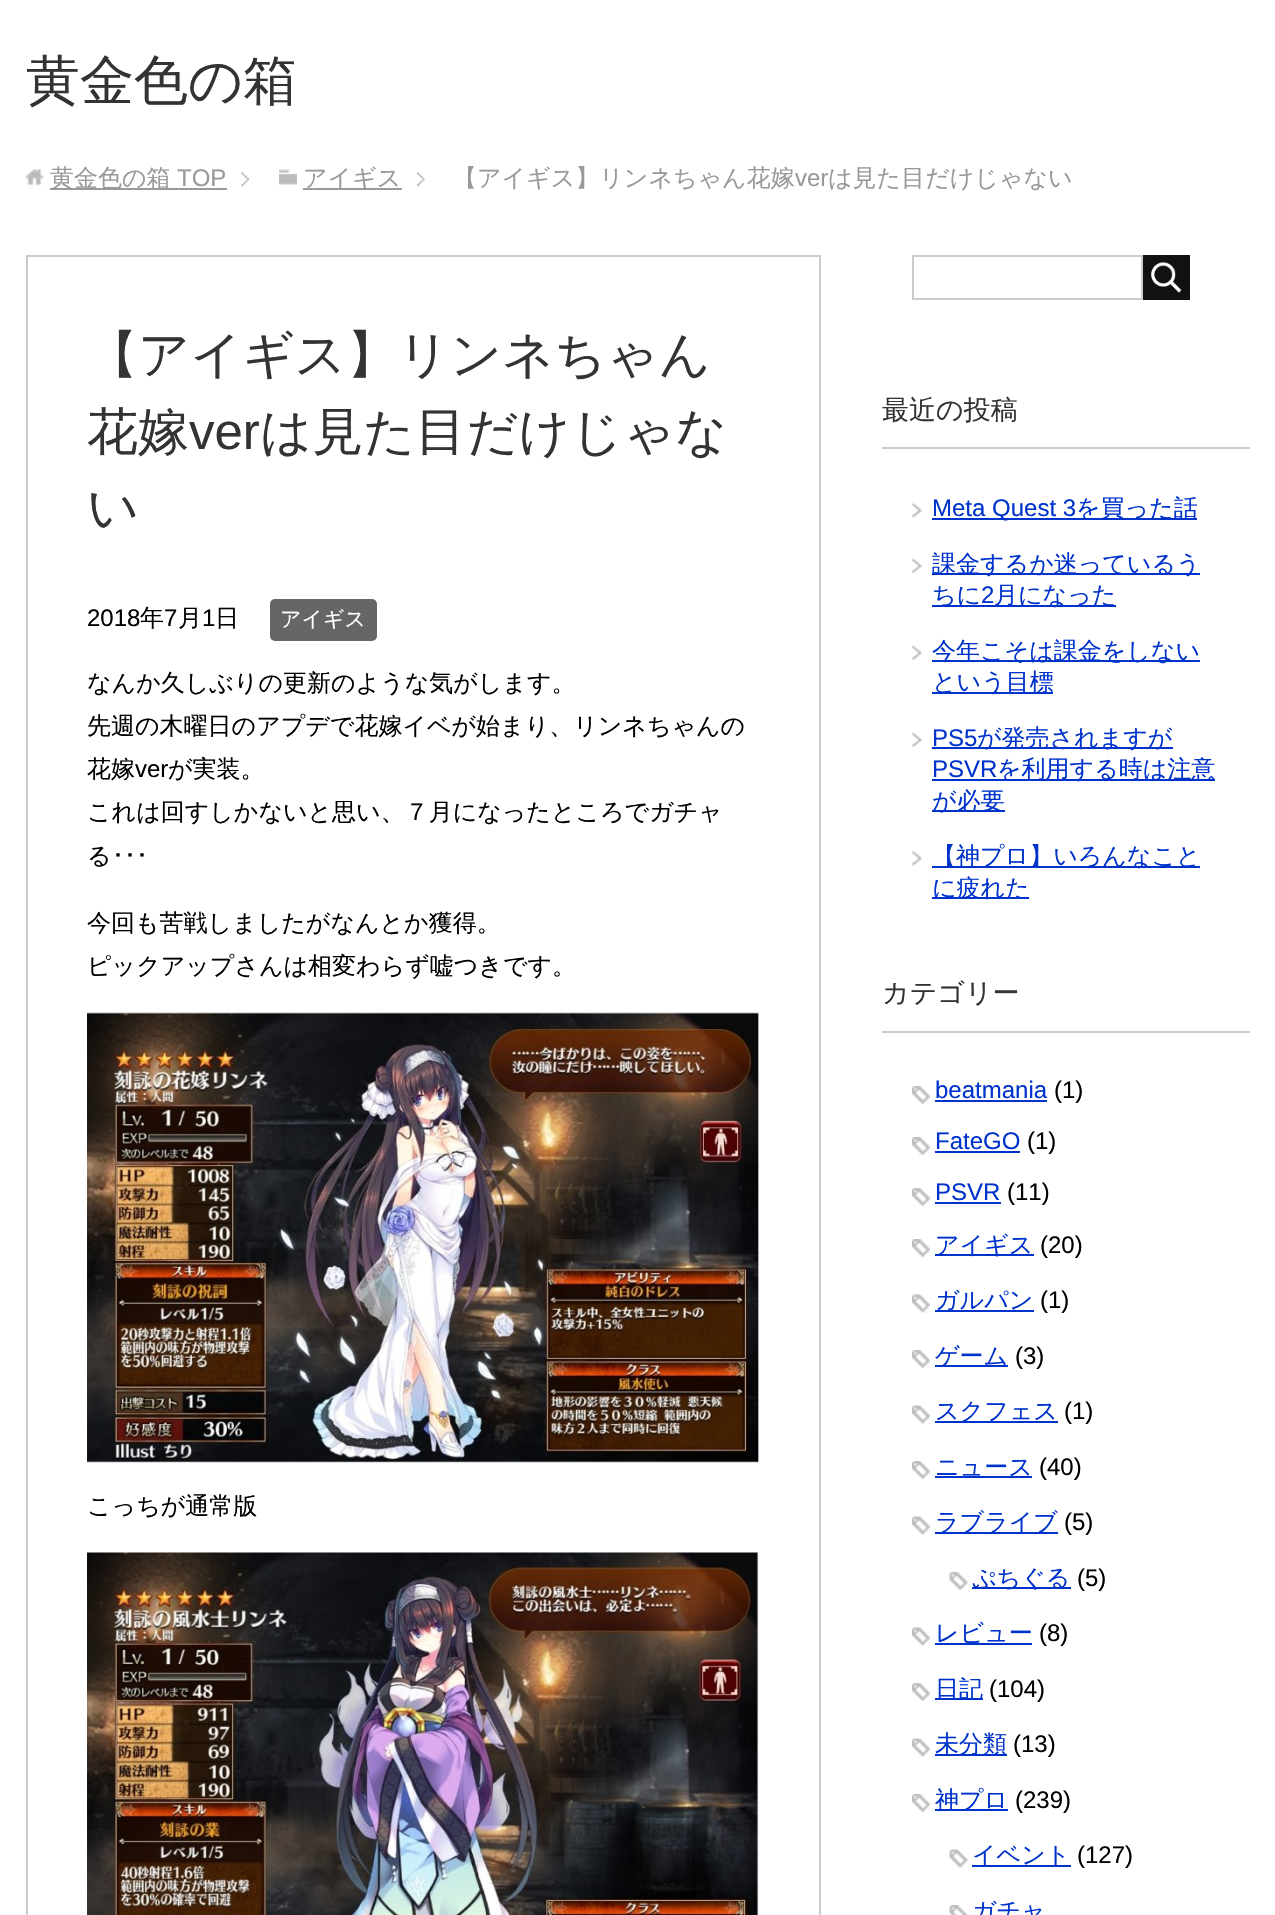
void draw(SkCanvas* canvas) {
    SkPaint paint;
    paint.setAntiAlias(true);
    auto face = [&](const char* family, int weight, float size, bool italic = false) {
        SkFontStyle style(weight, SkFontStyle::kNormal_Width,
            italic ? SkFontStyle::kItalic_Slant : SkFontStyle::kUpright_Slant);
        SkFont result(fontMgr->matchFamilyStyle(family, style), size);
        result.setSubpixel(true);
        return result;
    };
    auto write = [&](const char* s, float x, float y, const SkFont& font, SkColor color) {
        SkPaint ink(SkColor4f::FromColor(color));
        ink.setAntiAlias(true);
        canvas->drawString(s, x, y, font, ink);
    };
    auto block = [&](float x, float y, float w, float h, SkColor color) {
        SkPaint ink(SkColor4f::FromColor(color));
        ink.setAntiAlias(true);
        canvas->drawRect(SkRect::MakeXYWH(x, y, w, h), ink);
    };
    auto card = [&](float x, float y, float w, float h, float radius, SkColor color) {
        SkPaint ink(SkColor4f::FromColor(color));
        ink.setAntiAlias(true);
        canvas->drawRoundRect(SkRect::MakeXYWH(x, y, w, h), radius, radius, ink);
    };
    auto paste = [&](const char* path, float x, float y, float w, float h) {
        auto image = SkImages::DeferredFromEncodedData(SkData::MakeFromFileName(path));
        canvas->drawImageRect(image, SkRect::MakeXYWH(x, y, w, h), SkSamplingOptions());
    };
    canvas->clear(SK_ColorWHITE);
    auto kFont1 = face("WenQuanYi Zen Hei", 500, 54);
    write("黄金色の箱", 26, 99, kFont1, SkColorSetRGB(51, 51, 51));
    paste("pic1.png", 241, 172, 8, 14);
    paste("pic2.png", 25, 169, 19, 17);
    block(50, 188, 177, 2, SkColorSetRGB(153, 153, 153));
    auto kFont2 = face("WenQuanYi Zen Hei", 500, 24);
    write("黄金色の箱", 50, 186, kFont2, SkColorSetRGB(153, 153, 153));
    auto kFont3 = face("Liberation Sans", 400, 24);
    write("TOP", 177, 186, kFont3, SkColorSetRGB(153, 153, 153));
    paste("pic3.png", 417, 172, 8, 14);
    paste("pic4.png", 279, 169, 18, 16);
    block(303, 188, 99, 2, SkColorSetRGB(153, 153, 153));
    write("アイギス", 303, 186, kFont2, SkColorSetRGB(153, 153, 153));
    write("【アイギス】リンネちゃん花嫁", 453, 186, kFont2, SkColorSetRGB(153, 153, 153));
    write("ver", 795, 186, kFont3, SkColorSetRGB(153, 153, 153));
    write("は見た目だけじゃない", 828, 186, kFont2, SkColorSetRGB(153, 153, 153));
    paint.setStyle(SkPaint::kStroke_Style);
    paint.setStrokeWidth(2);
    paint.setColor(SkColorSetRGB(204, 204, 204));
    canvas->drawRect(SkRect::MakeXYWH(27, 256, 793, 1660), paint);
    auto kFont4 = face("WenQuanYi Zen Hei", 500, 51);
    write("【アイギス】リンネちゃん", 87, 372, kFont4, SkColorSetRGB(51, 51, 51));
    write("花嫁", 87, 449, kFont4, SkColorSetRGB(51, 51, 51));
    auto kFont5 = face("Liberation Sans", 400, 51);
    write("ver", 189, 449, kFont5, SkColorSetRGB(51, 51, 51));
    write("は見た目だけじゃな", 260, 449, kFont4, SkColorSetRGB(51, 51, 51));
    write("い", 87, 525, kFont4, SkColorSetRGB(51, 51, 51));
    write("2018", 87, 626, kFont3, SK_ColorBLACK);
    write("年", 140, 626, kFont2, SK_ColorBLACK);
    write("7", 164, 626, kFont3, SK_ColorBLACK);
    write("月", 178, 626, kFont2, SK_ColorBLACK);
    write("1", 202, 626, kFont3, SK_ColorBLACK);
    write("日", 215, 626, kFont2, SK_ColorBLACK);
    card(270, 599, 107, 42, 5, SkColorSetRGB(102, 102, 102));
    auto kFont6 = face("WenQuanYi Zen Hei", 500, 21);
    write("アイギス", 280, 626, kFont6, SK_ColorWHITE);
    write("なんか久しぶりの更新のような気がします。", 87, 691, kFont2, SK_ColorBLACK);
    write("先週の木曜日のアプデで花嫁イベが始まり、リンネちゃんの", 87, 734, kFont2, SK_ColorBLACK);
    write("花嫁", 87, 777, kFont2, SK_ColorBLACK);
    write("ver", 135, 777, kFont3, SK_ColorBLACK);
    write("が実装。", 168, 777, kFont2, SK_ColorBLACK);
    write("これは回すしかないと思い、７月になったところでガチャ", 87, 820, kFont2, SK_ColorBLACK);
    write("る", 87, 864, kFont2, SK_ColorBLACK);
    auto kFont7 = face("IPAPGothic", 400, 24);
    write("･･･", 112, 864, kFont7, SK_ColorBLACK);
    write("今回も苦戦しましたがなんとか獲得。", 87, 931, kFont2, SK_ColorBLACK);
    write("ピックアップさんは相変わらず嘘つきです。", 87, 974, kFont2, SK_ColorBLACK);
    paste("pic5.png", 87, 1012, 672, 451);
    write("こっちが通常版", 87, 1514, kFont2, SK_ColorBLACK);
    paste("pic6.png", 87, 1552, 672, 363);
    canvas->drawRect(SkRect::MakeXYWH(913, 256, 229, 43), paint);
    block(1143, 255, 47, 45, SkColorSetRGB(17, 17, 17));
    paste("pic7.png", 1151, 262, 31, 31);
    block(882, 447, 368, 2, SkColorSetRGB(204, 204, 204));
    auto kFont8 = face("WenQuanYi Zen Hei", 500, 27);
    write("最近の投稿", 882, 419, kFont8, SkColorSetRGB(51, 51, 51));
    paste("pic8.png", 912, 502, 11, 16);
    block(932, 518, 265, 2, SkColorSetRGB(0, 51, 204));
    write("Meta Quest 3", 932, 516, kFont3, SkColorSetRGB(0, 51, 204));
    write("を買った話", 1076, 516, kFont2, SkColorSetRGB(0, 51, 204));
    paste("pic9.png", 912, 558, 11, 15);
    block(932, 573, 268, 2, SkColorSetRGB(0, 51, 204));
    write("課金するか迷っているう", 932, 572, kFont2, SkColorSetRGB(0, 51, 204));
    block(932, 605, 184, 2, SkColorSetRGB(0, 51, 204));
    write("ちに", 932, 603, kFont2, SkColorSetRGB(0, 51, 204));
    write("2", 981, 603, kFont3, SkColorSetRGB(0, 51, 204));
    write("月になった", 994, 603, kFont2, SkColorSetRGB(0, 51, 204));
    paste("pic9.png", 912, 645, 11, 15);
    block(932, 660, 268, 2, SkColorSetRGB(0, 51, 204));
    write("今年こそは課金をしない", 932, 659, kFont2, SkColorSetRGB(0, 51, 204));
    block(932, 692, 121, 2, SkColorSetRGB(0, 51, 204));
    write("という目標", 932, 690, kFont2, SkColorSetRGB(0, 51, 204));
    paste("pic9.png", 912, 732, 11, 15);
    write("PS5", 932, 746, kFont3, SkColorSetRGB(0, 51, 204));
    block(932, 747, 241, 2, SkColorSetRGB(0, 51, 204));
    write("が発売されますが", 977, 746, kFont2, SkColorSetRGB(0, 51, 204));
    write("PSVR", 932, 777, kFont3, SkColorSetRGB(0, 51, 204));
    block(932, 779, 283, 2, SkColorSetRGB(0, 51, 204));
    write("を利用する時は注意", 997, 777, kFont2, SkColorSetRGB(0, 51, 204));
    block(932, 810, 73, 2, SkColorSetRGB(0, 51, 204));
    write("が必要", 932, 809, kFont2, SkColorSetRGB(0, 51, 204));
    paste("pic8.png", 912, 850, 11, 16);
    block(932, 866, 268, 2, SkColorSetRGB(0, 51, 204));
    write("【神プロ】いろんなこと", 932, 864, kFont2, SkColorSetRGB(0, 51, 204));
    block(932, 897, 97, 2, SkColorSetRGB(0, 51, 204));
    write("に疲れた", 932, 896, kFont2, SkColorSetRGB(0, 51, 204));
    block(882, 1031, 368, 2, SkColorSetRGB(204, 204, 204));
    write("カテゴリー", 882, 1002, kFont8, SkColorSetRGB(51, 51, 51));
    paste("pic10.png", 912, 1086, 18, 18);
    write("beatmania", 935, 1098, kFont3, SkColorSetRGB(0, 51, 204));
    block(935, 1100, 112, 2, SkColorSetRGB(0, 51, 204));
    write("(1)", 1054, 1098, kFont3, SK_ColorBLACK);
    paste("pic10.png", 912, 1137, 18, 18);
    write("FateGO", 935, 1149, kFont3, SkColorSetRGB(0, 51, 204));
    block(935, 1151, 85, 2, SkColorSetRGB(0, 51, 204));
    write("(1)", 1027, 1149, kFont3, SK_ColorBLACK);
    paste("pic10.png", 912, 1188, 18, 18);
    write("PSVR", 935, 1200, kFont3, SkColorSetRGB(0, 51, 204));
    block(935, 1202, 66, 2, SkColorSetRGB(0, 51, 204));
    write("(11)", 1007, 1200, kFont3, SK_ColorBLACK);
    paste("pic10.png", 912, 1239, 18, 18);
    block(935, 1254, 99, 2, SkColorSetRGB(0, 51, 204));
    write("アイギス", 935, 1253, kFont2, SkColorSetRGB(0, 51, 204));
    write("(20)", 1040, 1253, kFont3, SK_ColorBLACK);
    paste("pic11.png", 912, 1294, 18, 19);
    block(935, 1310, 99, 2, SkColorSetRGB(0, 51, 204));
    write("ガルパン", 935, 1308, kFont2, SkColorSetRGB(0, 51, 204));
    write("(1)", 1040, 1308, kFont3, SK_ColorBLACK);
    paste("pic10.png", 912, 1350, 18, 18);
    block(935, 1365, 73, 2, SkColorSetRGB(0, 51, 204));
    write("ゲーム", 935, 1364, kFont2, SkColorSetRGB(0, 51, 204));
    write("(3)", 1015, 1364, kFont3, SK_ColorBLACK);
    paste("pic11.png", 912, 1405, 18, 19);
    block(935, 1421, 123, 2, SkColorSetRGB(0, 51, 204));
    write("スクフェス", 935, 1419, kFont2, SkColorSetRGB(0, 51, 204));
    write("(1)", 1064, 1419, kFont3, SK_ColorBLACK);
    paste("pic10.png", 912, 1461, 18, 18);
    block(935, 1476, 97, 2, SkColorSetRGB(0, 51, 204));
    write("ニュース", 935, 1475, kFont2, SkColorSetRGB(0, 51, 204));
    write("(40)", 1039, 1475, kFont3, SK_ColorBLACK);
    paste("pic11.png", 912, 1516, 18, 19);
    block(935, 1532, 123, 2, SkColorSetRGB(0, 51, 204));
    write("ラブライブ", 935, 1530, kFont2, SkColorSetRGB(0, 51, 204));
    write("(5)", 1064, 1530, kFont3, SK_ColorBLACK);
    paste("pic12.png", 949, 1572, 19, 18);
    block(972, 1587, 99, 2, SkColorSetRGB(0, 51, 204));
    write("ぷちぐる", 972, 1586, kFont2, SkColorSetRGB(0, 51, 204));
    write("(5)", 1077, 1586, kFont3, SK_ColorBLACK);
    paste("pic11.png", 912, 1627, 18, 19);
    write("レビュー", 935, 1641, kFont2, SkColorSetRGB(0, 51, 204));
    block(935, 1643, 97, 2, SkColorSetRGB(0, 51, 204));
    write("(8)", 1039, 1641, kFont3, SK_ColorBLACK);
    paste("pic10.png", 912, 1683, 18, 18);
    block(935, 1698, 48, 2, SkColorSetRGB(0, 51, 204));
    write("日記", 935, 1697, kFont2, SkColorSetRGB(0, 51, 204));
    write("(104)", 989, 1697, kFont3, SK_ColorBLACK);
    paste("pic11.png", 912, 1738, 18, 19);
    block(935, 1754, 72, 2, SkColorSetRGB(0, 51, 204));
    write("未分類", 935, 1752, kFont2, SkColorSetRGB(0, 51, 204));
    write("(13)", 1013, 1752, kFont3, SK_ColorBLACK);
    paste("pic10.png", 912, 1794, 18, 18);
    block(935, 1809, 73, 2, SkColorSetRGB(0, 51, 204));
    write("神プロ", 935, 1808, kFont2, SkColorSetRGB(0, 51, 204));
    write("(239)", 1015, 1808, kFont3, SK_ColorBLACK);
    paste("pic13.png", 949, 1849, 19, 19);
    block(972, 1865, 99, 2, SkColorSetRGB(0, 51, 204));
    write("イベント", 972, 1863, kFont2, SkColorSetRGB(0, 51, 204));
    write("(127)", 1077, 1863, kFont3, SK_ColorBLACK);
    paste("pic14.png", 949, 1905, 19, 10);
    write("ガチャ", 972, 1919, kFont2, SkColorSetRGB(0, 51, 204));
}
